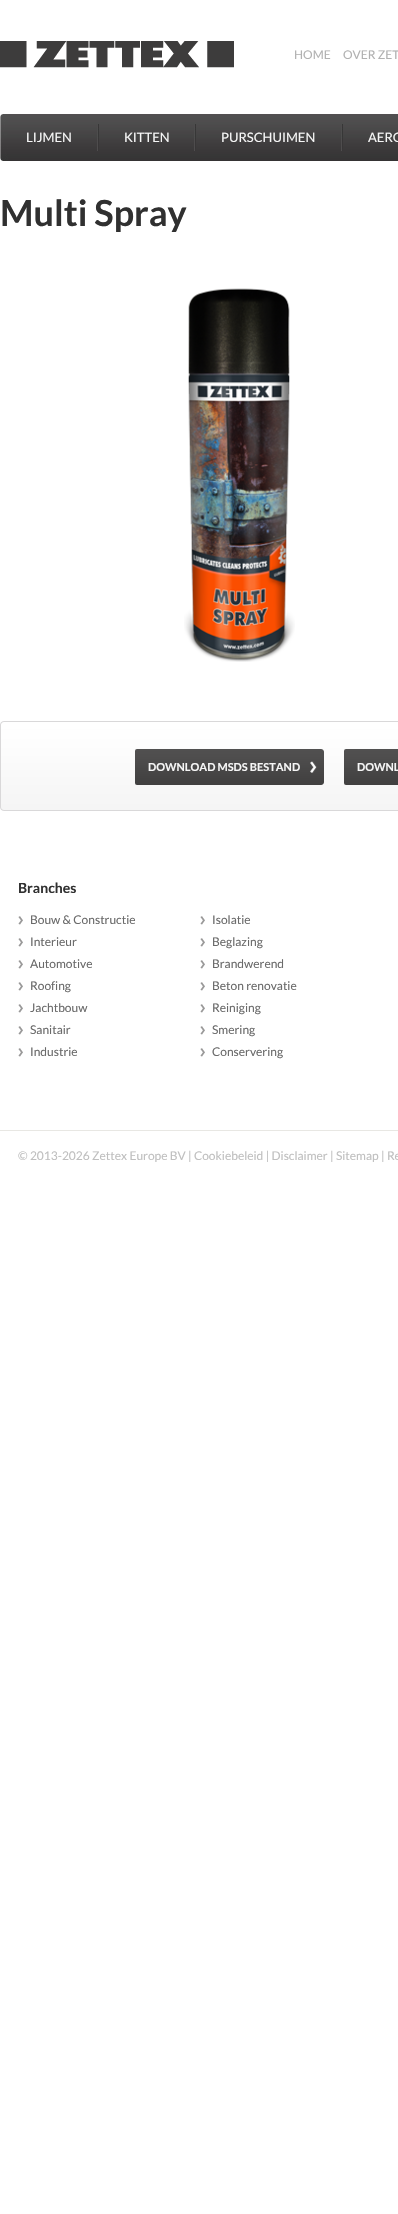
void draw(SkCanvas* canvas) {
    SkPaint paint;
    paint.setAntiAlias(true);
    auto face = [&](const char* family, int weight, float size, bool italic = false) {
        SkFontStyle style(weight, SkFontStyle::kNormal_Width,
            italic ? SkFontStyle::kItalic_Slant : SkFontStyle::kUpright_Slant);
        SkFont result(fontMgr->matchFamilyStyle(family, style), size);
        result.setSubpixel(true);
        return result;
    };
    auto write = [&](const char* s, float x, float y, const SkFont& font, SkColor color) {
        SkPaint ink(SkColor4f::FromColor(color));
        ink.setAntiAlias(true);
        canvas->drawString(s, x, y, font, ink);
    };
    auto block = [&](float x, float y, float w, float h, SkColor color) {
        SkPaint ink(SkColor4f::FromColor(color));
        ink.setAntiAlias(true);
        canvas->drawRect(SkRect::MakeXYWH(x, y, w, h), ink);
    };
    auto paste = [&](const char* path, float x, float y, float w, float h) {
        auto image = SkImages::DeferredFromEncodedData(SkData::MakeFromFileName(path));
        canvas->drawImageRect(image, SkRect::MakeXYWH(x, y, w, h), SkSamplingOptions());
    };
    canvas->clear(SK_ColorWHITE);
    paste("pic1.png", 0, 41, 234, 27);
    auto kFont1 = face("Lato", 400, 12);
    write("HOME", 294, 59, kFont1, SkColorSetRGB(177, 177, 177));
    write("OVER ZET", 343, 59, kFont1, SkColorSetRGB(177, 177, 177));
    paste("pic2.png", 0, 114, 398, 47);
    auto kFont2 = face("Lato", 400, 13);
    write("LIJMEN", 26, 142, kFont2, SkColorSetRGB(246, 246, 246));
    paste("pic3.png", 97, 124, 2, 27);
    write("KITTEN", 124, 142, kFont2, SkColorSetRGB(246, 246, 246));
    paste("pic3.png", 194, 124, 2, 27);
    write("PURSCHUIMEN", 221, 142, kFont2, SkColorSetRGB(246, 246, 246));
    paste("pic3.png", 341, 124, 2, 27);
    write("AERO", 368, 142, kFont2, SkColorSetRGB(246, 246, 246));
    auto kFont3 = face("Lato", 700, 36);
    write("Multi Spray", 0, 226, kFont3, SkColorSetRGB(48, 48, 48));
    paste("pic4.png", 184, 288, 111, 374);
    paste("pic5.png", 0, 721, 398, 90);
    paste("pic6.png", 135, 749, 189, 36);
    auto kFont4 = face("Lato", 700, 11);
    write("DOWNLOAD MSDS BESTAND", 148, 771, kFont4, SkColorSetRGB(246, 246, 246));
    paste("pic7.png", 344, 749, 54, 36);
    write("DOWNL", 357, 771, kFont4, SkColorSetRGB(246, 246, 246));
    auto kFont5 = face("Lato", 700, 14);
    write("Branches", 18, 893, kFont5, SkColorSetRGB(48, 48, 48));
    paste("pic8.png", 18, 916, 5, 9);
    write("Bouw & Constructie", 30, 924, kFont1, SkColorSetRGB(106, 106, 106));
    paste("pic8.png", 18, 938, 5, 9);
    write("Interieur", 30, 946, kFont1, SkColorSetRGB(106, 106, 106));
    paste("pic8.png", 18, 960, 5, 9);
    write("Automotive", 30, 968, kFont1, SkColorSetRGB(106, 106, 106));
    paste("pic8.png", 18, 982, 5, 9);
    write("Roofing", 30, 990, kFont1, SkColorSetRGB(106, 106, 106));
    paste("pic8.png", 18, 1004, 5, 9);
    write("Jachtbouw", 30, 1012, kFont1, SkColorSetRGB(106, 106, 106));
    paste("pic8.png", 18, 1026, 5, 9);
    write("Sanitair", 30, 1034, kFont1, SkColorSetRGB(106, 106, 106));
    paste("pic8.png", 18, 1048, 5, 9);
    write("Industrie", 30, 1056, kFont1, SkColorSetRGB(106, 106, 106));
    paste("pic8.png", 200, 916, 5, 9);
    write("Isolatie", 212, 924, kFont1, SkColorSetRGB(106, 106, 106));
    paste("pic8.png", 200, 938, 5, 9);
    write("Beglazing", 212, 946, kFont1, SkColorSetRGB(106, 106, 106));
    paste("pic8.png", 200, 960, 5, 9);
    write("Brandwerend", 212, 968, kFont1, SkColorSetRGB(106, 106, 106));
    paste("pic8.png", 200, 982, 5, 9);
    write("Beton renovatie", 212, 990, kFont1, SkColorSetRGB(106, 106, 106));
    paste("pic8.png", 200, 1004, 5, 9);
    write("Reiniging", 212, 1012, kFont1, SkColorSetRGB(106, 106, 106));
    paste("pic8.png", 200, 1026, 5, 9);
    write("Smering", 212, 1034, kFont1, SkColorSetRGB(106, 106, 106));
    paste("pic8.png", 200, 1048, 5, 9);
    write("Conservering", 212, 1056, kFont1, SkColorSetRGB(106, 106, 106));
    block(0, 1130, 398, 1, SkColorSetRGB(232, 231, 227));
    write("© 2013-2026 Zettex Europe BV | Cookiebeleid | Disclaimer | Sitemap | Re", 18, 1160, kFont1, SkColorSetRGB(191, 191, 191));
}
